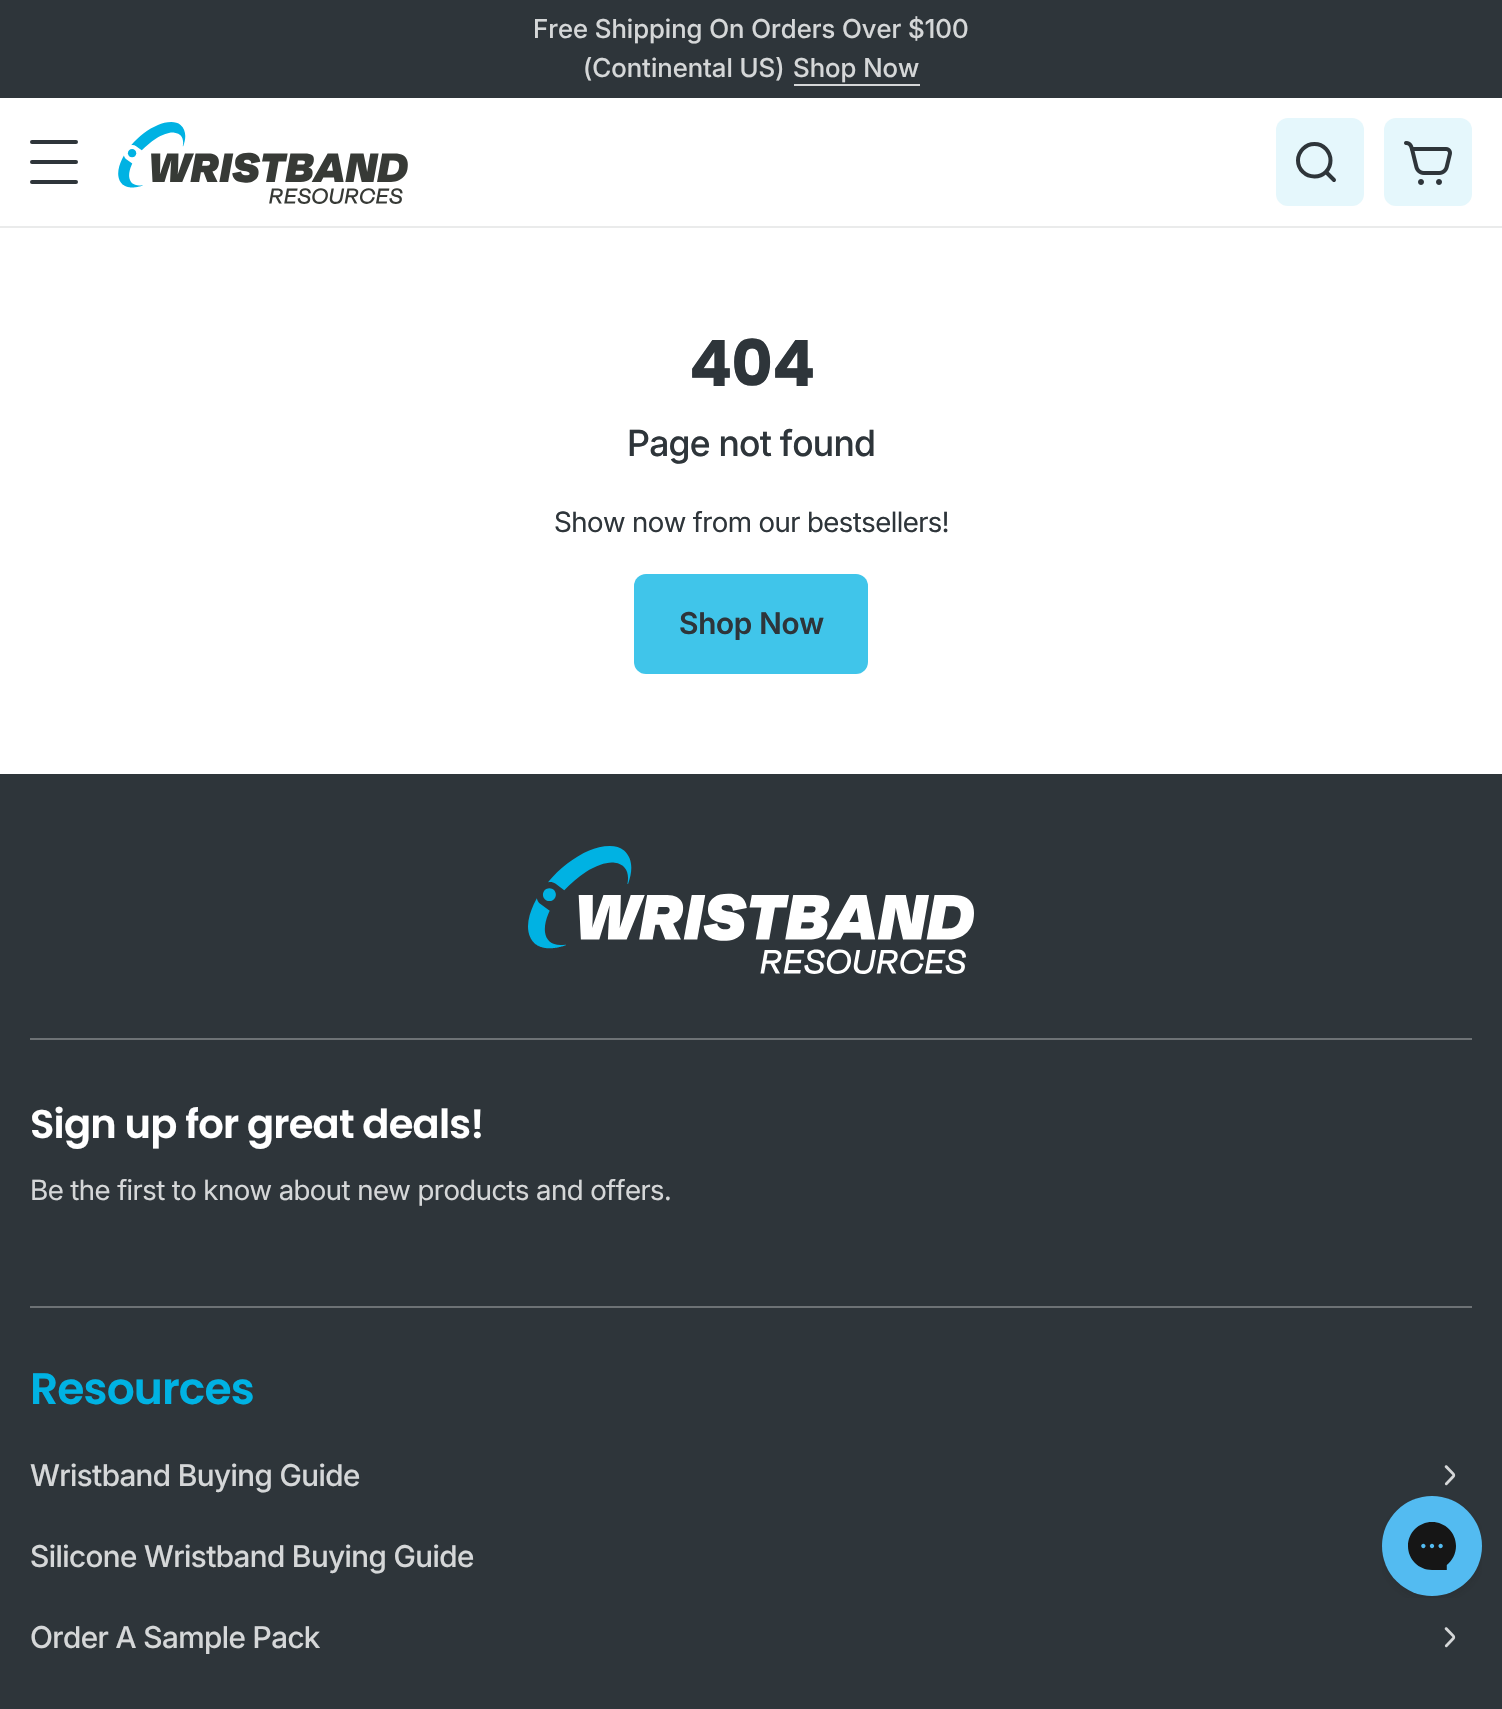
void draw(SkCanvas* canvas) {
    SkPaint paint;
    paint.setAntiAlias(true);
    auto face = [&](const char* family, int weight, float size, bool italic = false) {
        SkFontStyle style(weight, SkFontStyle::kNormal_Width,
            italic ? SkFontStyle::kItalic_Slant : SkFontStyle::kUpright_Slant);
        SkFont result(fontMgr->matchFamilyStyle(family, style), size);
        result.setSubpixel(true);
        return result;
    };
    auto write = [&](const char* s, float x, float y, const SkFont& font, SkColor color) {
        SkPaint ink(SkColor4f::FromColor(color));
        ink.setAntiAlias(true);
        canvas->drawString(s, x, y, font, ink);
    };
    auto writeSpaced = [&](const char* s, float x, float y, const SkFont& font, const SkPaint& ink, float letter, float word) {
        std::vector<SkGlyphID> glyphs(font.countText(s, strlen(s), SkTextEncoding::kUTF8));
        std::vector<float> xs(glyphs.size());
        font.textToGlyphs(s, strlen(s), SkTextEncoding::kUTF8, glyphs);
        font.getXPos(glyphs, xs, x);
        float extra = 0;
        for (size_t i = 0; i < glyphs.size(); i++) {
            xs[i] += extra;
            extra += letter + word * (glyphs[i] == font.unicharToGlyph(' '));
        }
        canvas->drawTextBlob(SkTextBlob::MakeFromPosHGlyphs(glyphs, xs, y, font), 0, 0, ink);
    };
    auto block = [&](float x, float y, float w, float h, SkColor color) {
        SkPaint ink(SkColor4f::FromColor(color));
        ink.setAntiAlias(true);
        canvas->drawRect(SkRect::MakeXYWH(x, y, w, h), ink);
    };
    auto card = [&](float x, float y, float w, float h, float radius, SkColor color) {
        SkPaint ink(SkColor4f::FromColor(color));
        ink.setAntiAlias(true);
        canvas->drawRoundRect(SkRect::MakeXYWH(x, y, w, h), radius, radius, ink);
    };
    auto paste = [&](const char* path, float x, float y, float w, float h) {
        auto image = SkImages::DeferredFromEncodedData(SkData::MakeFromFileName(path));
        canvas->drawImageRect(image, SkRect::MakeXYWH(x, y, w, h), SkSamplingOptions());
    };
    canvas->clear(SK_ColorWHITE);
    block(0, 0, 1502, 98, SkColorSetRGB(46, 53, 58));
    auto kFont1 = face("Inter", 500, 26);
    write("Free Shipping On Orders Over $100", 533, 38, kFont1, SkColorSetRGB(213, 215, 216));
    write("(Continental US)", 583, 77, kFont1, SkColorSetRGB(213, 215, 216));
    write("Shop Now", 793, 77, kFont1, SkColorSetRGB(213, 215, 216));
    block(794, 84, 126, 2, SkColorSetRGB(213, 215, 216));
    block(0, 226, 1502, 2, SkColorSetRGB(234, 235, 235));
    paint.setStyle(SkPaint::kStroke_Style);
    paint.setStrokeWidth(4);
    paint.setStrokeCap(SkPaint::kRound_Cap);
    paint.setStrokeJoin(SkPaint::kRound_Join);
    paint.setColor(SkColorSetRGB(46, 53, 58));
    canvas->drawPath(SkPathBuilder().moveTo(32, 142).lineTo(76, 142).moveTo(32, 162).lineTo(76, 162).moveTo(32, 182).lineTo(76, 182).detach(), paint);
    paste("pic1.png", 118, 122, 290, 82);
    card(1276, 118, 88, 88, 12, SkColorSetRGB(229, 247, 252));
    canvas->drawPath(SkPathBuilder().moveTo(1314.5f, 176.5f).cubicTo(1323.5f, 176.5f, 1330.5f, 169.5f, 1330.5f, 160.5f).cubicTo(1330.5f, 151.5f, 1323.5f, 144, 1314.5f, 144).cubicTo(1305.5f, 144, 1298, 151.5f, 1298, 160.5f).cubicTo(1298, 169.5f, 1305.5f, 176.5f, 1314.5f, 176.5f).close().moveTo(1334, 180).lineTo(1327, 173).detach(), paint);
    card(1384, 118, 88, 88, 12, SkColorSetRGB(229, 247, 252));
    paste("pic2.png", 1404, 141, 48, 44);
    auto kFont2 = face("Poppins", 700, 64);
    paint.setStyle(SkPaint::kFill_Style);
    writeSpaced("404", 689, 386, kFont2, paint, -1, 0);
    auto kFont3 = face("Inter", 500, 36);
    writeSpaced("Page not found", 627, 456, kFont3, paint, -0.75f, 0);
    auto kFont4 = face("Inter", 400, 28);
    writeSpaced("Show now from our bestsellers!", 554, 532, kFont4, paint, -0.55f, 0);
    card(634, 574, 234, 100, 12, SkColorSetRGB(64, 197, 234));
    auto kFont5 = face("Inter", 600, 30);
    writeSpaced("Shop Now", 679, 634, kFont5, paint, -0.25f, 0);
    block(0, 774, 1502, 935, SkColorSetRGB(46, 53, 58));
    paste("pic3.png", 528, 846, 446, 128);
    block(30, 1038, 1442, 2, SkColorSetRGB(109, 114, 117));
    auto kFont6 = face("Poppins", 600, 40);
    paint.setColor(SK_ColorWHITE);
    writeSpaced("Sign up for great deals!", 30, 1138, kFont6, paint, -0.8f, 0);
    paint.setColor(SkColorSetRGB(213, 215, 216));
    writeSpaced("Be the first to know about new products and offers.", 30, 1200, kFont4, paint, -0.55f, 0);
    block(30, 1306, 1442, 2, SkColorSetRGB(109, 114, 117));
    auto kFont7 = face("Poppins", 600, 44);
    paint.setColor(SkColorSetRGB(0, 178, 227));
    writeSpaced("Resources", 30, 1404, kFont7, paint, -0.9f, 0);
    auto kFont8 = face("Inter", 500, 30);
    paint.setColor(SkColorSetRGB(213, 215, 216));
    writeSpaced("Wristband Buying Guide", 30, 1486, kFont8, paint, -0.55f, 0);
    paste("pic4.png", 1444, 1465, 12, 21);
    writeSpaced("Silicone Wristband Buying Guide", 30, 1567, kFont8, paint, -0.55f, 0);
    writeSpaced("Order A Sample Pack", 30, 1648, kFont8, paint, -0.55f, 0);
    paste("pic4.png", 1444, 1627, 12, 21);
    paste("pic5.png", 1382, 1496, 100, 102);
}
